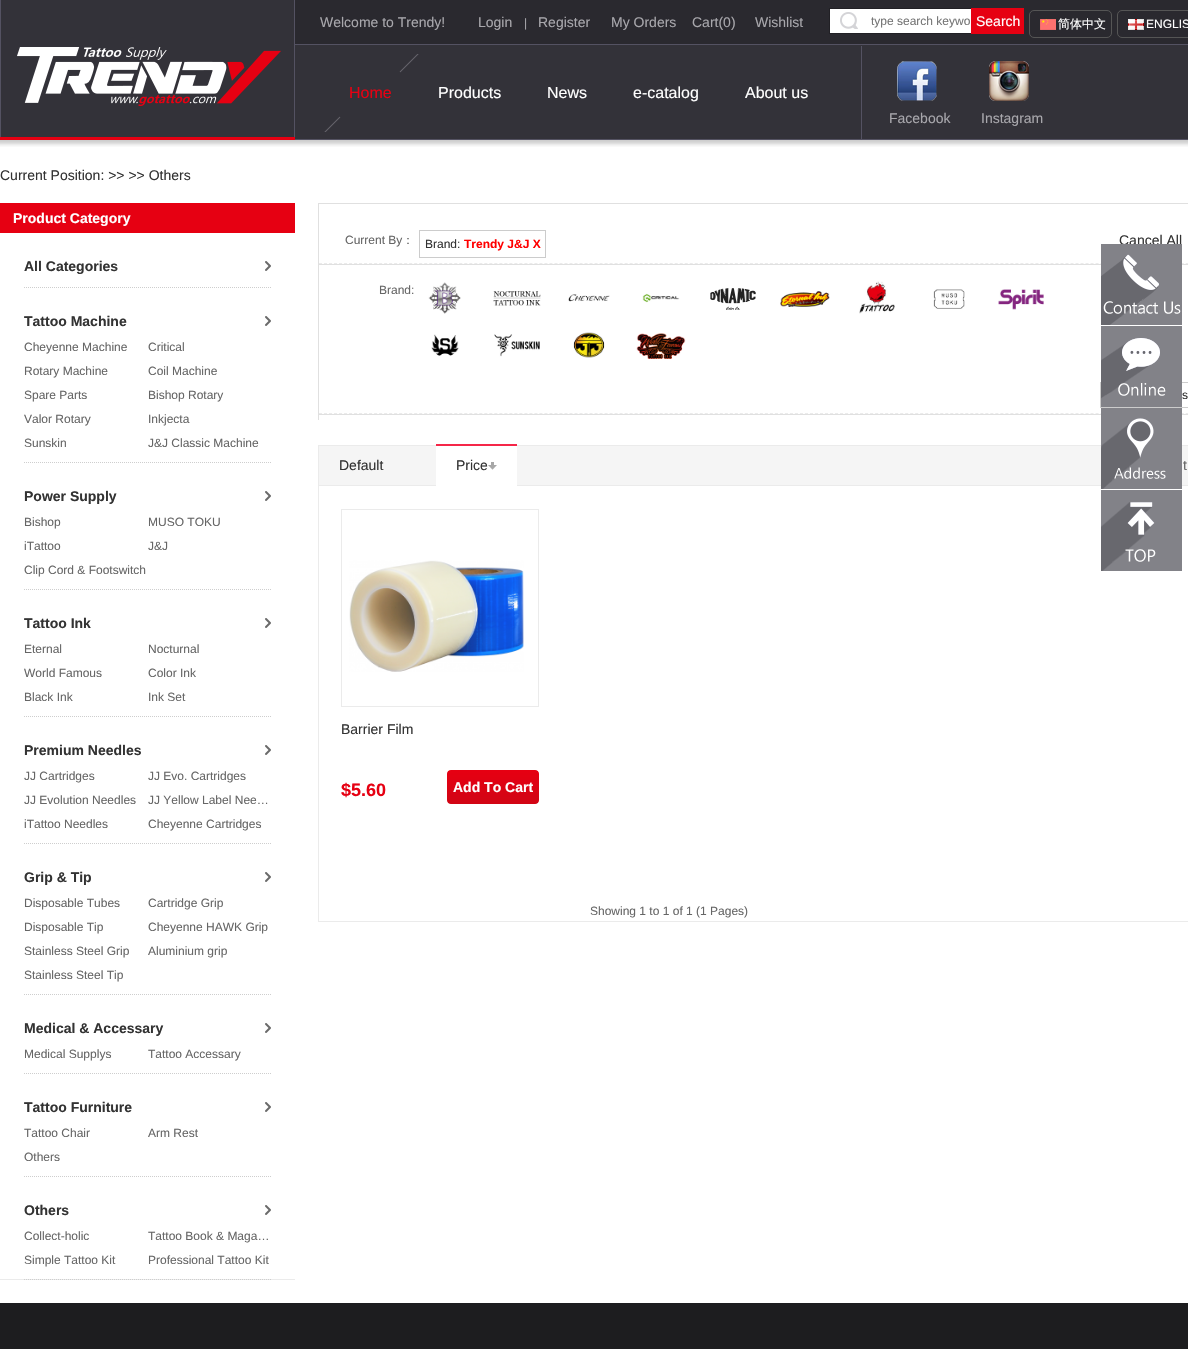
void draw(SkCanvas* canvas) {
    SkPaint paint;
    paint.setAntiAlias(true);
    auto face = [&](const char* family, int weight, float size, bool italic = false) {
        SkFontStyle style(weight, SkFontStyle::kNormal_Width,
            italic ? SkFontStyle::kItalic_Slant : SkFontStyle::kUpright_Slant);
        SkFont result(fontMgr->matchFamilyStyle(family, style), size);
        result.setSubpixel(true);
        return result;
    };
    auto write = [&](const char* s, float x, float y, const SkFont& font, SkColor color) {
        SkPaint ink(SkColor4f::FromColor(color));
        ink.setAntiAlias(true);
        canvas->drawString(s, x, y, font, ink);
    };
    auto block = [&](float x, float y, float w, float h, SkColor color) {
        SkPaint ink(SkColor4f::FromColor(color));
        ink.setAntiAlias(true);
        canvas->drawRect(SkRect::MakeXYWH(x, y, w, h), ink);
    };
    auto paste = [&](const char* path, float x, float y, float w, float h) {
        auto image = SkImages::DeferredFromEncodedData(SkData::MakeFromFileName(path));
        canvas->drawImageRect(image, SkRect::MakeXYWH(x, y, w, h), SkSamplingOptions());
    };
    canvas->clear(SK_ColorWHITE);
    paste("pic1.png", 0, 0, 1188, 147);
    paste("pic2.png", 0, 0, 295, 140);
    auto kFont1 = face("Liberation Sans", 400, 14);
    write("Welcome to Trendy!", 320, 27, kFont1, SkColorSetRGB(168, 167, 172));
    write("Login", 478, 27, kFont1, SkColorSetRGB(168, 167, 172));
    auto kFont2 = face("Liberation Sans", 400, 12);
    write("|", 524, 27, kFont2, SkColorSetRGB(168, 167, 172));
    write("Register", 538, 27, kFont1, SkColorSetRGB(168, 167, 172));
    write("My Orders", 611, 27, kFont1, SkColorSetRGB(168, 167, 172));
    write("Cart(0)", 692, 27, kFont1, SkColorSetRGB(168, 167, 172));
    write("Wishlist", 755, 27, kFont1, SkColorSetRGB(168, 167, 172));
    block(830, 9, 141, 24, SK_ColorWHITE);
    paste("pic3.png", 840, 12, 18, 17);
    block(829, 8, 142, 1, SkColorSetRGB(33, 32, 37));
    block(829, 33, 142, 1, SkColorSetRGB(33, 32, 37));
    block(829, 8, 1, 26, SkColorSetRGB(33, 32, 37));
    write("type search keywo", 871, 25, kFont2, SkColorSetRGB(117, 117, 117));
    block(971, 8, 53, 26, SkColorSetRGB(230, 0, 18));
    write("Search", 976, 26, kFont1, SK_ColorWHITE);
    paste("pic4.png", 1040, 19, 16, 11);
    paint.setStyle(SkPaint::kStroke_Style);
    paint.setStrokeWidth(1);
    paint.setColor(SkColorSetRGB(85, 85, 85));
    canvas->drawRoundRect(SkRect::MakeXYWH(1029.5f, 10.5f, 82, 27), 4.5f, 4.5f, paint);
    auto kFont3 = face("WenQuanYi Zen Hei", 500, 12);
    write("简体中文", 1058, 28, kFont3, SK_ColorWHITE);
    paste("pic5.png", 1128, 19, 16, 11);
    canvas->drawRoundRect(SkRect::MakeXYWH(1117.5f, 10.5f, 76, 27), 4.5f, 4.5f, paint);
    write("ENGLIS", 1146, 28, kFont2, SK_ColorWHITE);
    paste("pic6.png", 399, 54, 20, 19);
    auto kFont4 = face("Liberation Sans", 400, 16);
    write("Home", 349, 98, kFont4, SkColorSetRGB(230, 0, 18));
    paste("pic7.png", 324, 116, 17, 16);
    write("Products", 438, 98, kFont4, SK_ColorWHITE);
    write("News", 547, 98, kFont4, SK_ColorWHITE);
    write("e-catalog", 633, 98, kFont4, SK_ColorWHITE);
    write("About us", 745, 98, kFont4, SK_ColorWHITE);
    block(861, 46, 1, 94, SkColorSetRGB(84, 82, 98));
    paste("pic8.png", 897, 61, 40, 40);
    write("Facebook", 889, 123, kFont1, SkColorSetRGB(168, 167, 172));
    paste("pic9.png", 989, 61, 40, 40);
    write("Instagram", 981, 123, kFont1, SkColorSetRGB(168, 167, 172));
    write("Current Position: >> >> Others", 0, 180, kFont1, SkColorSetRGB(51, 51, 51));
    block(0, 1279, 295, 1, SkColorSetRGB(235, 235, 235));
    block(0, 203, 295, 30, SkColorSetRGB(230, 0, 18));
    auto kFont5 = face("Liberation Sans", 700, 14);
    write("Product Category", 13, 223, kFont5, SK_ColorWHITE);
    paint.setColor(SkColorSetRGB(206, 206, 206));
    paint.setPathEffect(SkDashPathEffect::Make({{1, 1}}, 0));
    canvas->drawPath(SkPathBuilder().moveTo(24, 287.5f).lineTo(271, 287.5f).detach(), paint);
    paint.setPathEffect(nullptr);
    paste("pic10.png", 265, 261, 6, 10);
    write("All Categories", 24, 271, kFont5, SkColorSetRGB(51, 51, 51));
    paint.setPathEffect(SkDashPathEffect::Make({{1, 1}}, 0));
    canvas->drawPath(SkPathBuilder().moveTo(24, 462.5f).lineTo(271, 462.5f).detach(), paint);
    paint.setPathEffect(nullptr);
    paste("pic10.png", 265, 316, 6, 10);
    write("Tattoo Machine", 24, 326, kFont5, SkColorSetRGB(51, 51, 51));
    write("Cheyenne Machine", 24, 351, kFont2, SkColorSetRGB(102, 102, 102));
    write("Critical", 148, 351, kFont2, SkColorSetRGB(102, 102, 102));
    write("Rotary Machine", 24, 375, kFont2, SkColorSetRGB(102, 102, 102));
    write("Coil Machine", 148, 375, kFont2, SkColorSetRGB(102, 102, 102));
    write("Spare Parts", 24, 399, kFont2, SkColorSetRGB(102, 102, 102));
    write("Bishop Rotary", 148, 399, kFont2, SkColorSetRGB(102, 102, 102));
    write("Valor Rotary", 24, 423, kFont2, SkColorSetRGB(102, 102, 102));
    write("Inkjecta", 148, 423, kFont2, SkColorSetRGB(102, 102, 102));
    write("Sunskin", 24, 447, kFont2, SkColorSetRGB(102, 102, 102));
    write("J&J Classic Machine", 148, 447, kFont2, SkColorSetRGB(102, 102, 102));
    paint.setPathEffect(SkDashPathEffect::Make({{1, 1}}, 0));
    canvas->drawPath(SkPathBuilder().moveTo(24, 589.5f).lineTo(271, 589.5f).detach(), paint);
    paint.setPathEffect(nullptr);
    paste("pic10.png", 265, 491, 6, 10);
    write("Power Supply", 24, 501, kFont5, SkColorSetRGB(51, 51, 51));
    write("Bishop", 24, 526, kFont2, SkColorSetRGB(102, 102, 102));
    write("MUSO TOKU", 148, 526, kFont2, SkColorSetRGB(102, 102, 102));
    write("iTattoo", 24, 550, kFont2, SkColorSetRGB(102, 102, 102));
    write("J&J", 148, 550, kFont2, SkColorSetRGB(102, 102, 102));
    write("Clip Cord & Footswitch", 24, 574, kFont2, SkColorSetRGB(102, 102, 102));
    paint.setPathEffect(SkDashPathEffect::Make({{1, 1}}, 0));
    canvas->drawPath(SkPathBuilder().moveTo(24, 716.5f).lineTo(271, 716.5f).detach(), paint);
    paint.setPathEffect(nullptr);
    paste("pic10.png", 265, 618, 6, 10);
    write("Tattoo Ink", 24, 628, kFont5, SkColorSetRGB(51, 51, 51));
    write("Eternal", 24, 653, kFont2, SkColorSetRGB(102, 102, 102));
    write("Nocturnal", 148, 653, kFont2, SkColorSetRGB(102, 102, 102));
    write("World Famous", 24, 677, kFont2, SkColorSetRGB(102, 102, 102));
    write("Color Ink", 148, 677, kFont2, SkColorSetRGB(102, 102, 102));
    write("Black Ink", 24, 701, kFont2, SkColorSetRGB(102, 102, 102));
    write("Ink Set", 148, 701, kFont2, SkColorSetRGB(102, 102, 102));
    paint.setPathEffect(SkDashPathEffect::Make({{1, 1}}, 0));
    canvas->drawPath(SkPathBuilder().moveTo(24, 843.5f).lineTo(271, 843.5f).detach(), paint);
    paint.setPathEffect(nullptr);
    paste("pic10.png", 265, 745, 6, 10);
    write("Premium Needles", 24, 755, kFont5, SkColorSetRGB(51, 51, 51));
    write("JJ Cartridges", 24, 780, kFont2, SkColorSetRGB(102, 102, 102));
    write("JJ Evo. Cartridges", 148, 780, kFont2, SkColorSetRGB(102, 102, 102));
    write("JJ Evolution Needles", 24, 804, kFont2, SkColorSetRGB(102, 102, 102));
    write("JJ Yellow Label Nee…", 148, 804, kFont2, SkColorSetRGB(102, 102, 102));
    write("iTattoo Needles", 24, 828, kFont2, SkColorSetRGB(102, 102, 102));
    write("Cheyenne Cartridges", 148, 828, kFont2, SkColorSetRGB(102, 102, 102));
    paint.setPathEffect(SkDashPathEffect::Make({{1, 1}}, 0));
    canvas->drawPath(SkPathBuilder().moveTo(24, 994.5f).lineTo(271, 994.5f).detach(), paint);
    paint.setPathEffect(nullptr);
    paste("pic10.png", 265, 872, 6, 10);
    write("Grip & Tip", 24, 882, kFont5, SkColorSetRGB(51, 51, 51));
    write("Disposable Tubes", 24, 907, kFont2, SkColorSetRGB(102, 102, 102));
    write("Cartridge Grip", 148, 907, kFont2, SkColorSetRGB(102, 102, 102));
    write("Disposable Tip", 24, 931, kFont2, SkColorSetRGB(102, 102, 102));
    write("Cheyenne HAWK Grip", 148, 931, kFont2, SkColorSetRGB(102, 102, 102));
    write("Stainless Steel Grip", 24, 955, kFont2, SkColorSetRGB(102, 102, 102));
    write("Aluminium grip", 148, 955, kFont2, SkColorSetRGB(102, 102, 102));
    write("Stainless Steel Tip", 24, 979, kFont2, SkColorSetRGB(102, 102, 102));
    paint.setPathEffect(SkDashPathEffect::Make({{1, 1}}, 0));
    canvas->drawPath(SkPathBuilder().moveTo(24, 1073.5f).lineTo(271, 1073.5f).detach(), paint);
    paint.setPathEffect(nullptr);
    paste("pic10.png", 265, 1023, 6, 10);
    write("Medical & Accessary", 24, 1033, kFont5, SkColorSetRGB(51, 51, 51));
    write("Medical Supplys", 24, 1058, kFont2, SkColorSetRGB(102, 102, 102));
    write("Tattoo Accessary", 148, 1058, kFont2, SkColorSetRGB(102, 102, 102));
    paint.setPathEffect(SkDashPathEffect::Make({{1, 1}}, 0));
    canvas->drawPath(SkPathBuilder().moveTo(24, 1176.5f).lineTo(271, 1176.5f).detach(), paint);
    paint.setPathEffect(nullptr);
    paste("pic10.png", 265, 1102, 6, 10);
    write("Tattoo Furniture", 24, 1112, kFont5, SkColorSetRGB(51, 51, 51));
    write("Tattoo Chair", 24, 1137, kFont2, SkColorSetRGB(102, 102, 102));
    write("Arm Rest", 148, 1137, kFont2, SkColorSetRGB(102, 102, 102));
    write("Others", 24, 1161, kFont2, SkColorSetRGB(102, 102, 102));
    paint.setPathEffect(SkDashPathEffect::Make({{1, 1}}, 0));
    canvas->drawPath(SkPathBuilder().moveTo(24, 1279.5f).lineTo(271, 1279.5f).detach(), paint);
    paint.setPathEffect(nullptr);
    paste("pic10.png", 265, 1205, 6, 10);
    write("Others", 24, 1215, kFont5, SkColorSetRGB(51, 51, 51));
    write("Collect-holic", 24, 1240, kFont2, SkColorSetRGB(102, 102, 102));
    write("Tattoo Book & Maga…", 148, 1240, kFont2, SkColorSetRGB(102, 102, 102));
    write("Simple Tattoo Kit", 24, 1264, kFont2, SkColorSetRGB(102, 102, 102));
    write("Professional Tattoo Kit", 148, 1264, kFont2, SkColorSetRGB(102, 102, 102));
    block(318, 203, 870, 1, SkColorSetRGB(224, 224, 224));
    block(318, 203, 1, 217, SkColorSetRGB(224, 224, 224));
    block(319, 264, 869, 1, SkColorSetRGB(224, 224, 224));
    paint.setColor(SkColorSetRGB(235, 235, 235));
    paint.setPathEffect(SkDashPathEffect::Make({{3, 2.01f}}, 0));
    canvas->drawPath(SkPathBuilder().moveTo(319, 263.5f).lineTo(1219, 263.5f).detach(), paint);
    paint.setPathEffect(nullptr);
    write("Current By", 345, 244, kFont2, SkColorSetRGB(102, 102, 102));
    write("：", 402, 244, kFont3, SkColorSetRGB(102, 102, 102));
    paint.setColor(SkColorSetRGB(204, 204, 204));
    canvas->drawRect(SkRect::MakeXYWH(419.5f, 230.5f, 126, 27), paint);
    write("Brand:", 425, 248, kFont2, SkColorSetRGB(51, 51, 51));
    auto kFont6 = face("Liberation Sans", 700, 12);
    write("Trendy J&J X", 464, 248, kFont6, SkColorSetRGB(255, 0, 0));
    write("Cancel All", 1119, 245, kFont1, SkColorSetRGB(51, 51, 51));
    block(319, 414, 869, 1, SkColorSetRGB(224, 224, 224));
    paint.setColor(SkColorSetRGB(235, 235, 235));
    paint.setPathEffect(SkDashPathEffect::Make({{3, 2.01f}}, 0));
    canvas->drawPath(SkPathBuilder().moveTo(319, 413.5f).lineTo(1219, 413.5f).detach(), paint);
    paint.setPathEffect(nullptr);
    write("Brand:", 379, 294, kFont2, SkColorSetRGB(102, 102, 102));
    paste("pic11.png", 428, 282, 33, 32);
    paste("pic12.png", 493, 291, 48, 15);
    paste("pic13.png", 568, 294, 42, 8);
    paste("pic14.png", 642, 293, 38, 10);
    paste("pic15.png", 710, 288, 46, 22);
    paste("pic16.png", 780, 291, 50, 16);
    paste("pic17.png", 859, 281, 36, 33);
    paste("pic18.png", 933, 289, 32, 20);
    paste("pic19.png", 998, 289, 46, 21);
    paste("pic20.png", 431, 334, 28, 22);
    paste("pic21.png", 494, 334, 46, 23);
    paste("pic22.png", 573, 332, 32, 26);
    paste("pic23.png", 636, 333, 50, 26);
    paint.setColor(SkColorSetRGB(204, 204, 204));
    canvas->drawRect(SkRect::MakeXYWH(1100.5f, 382.5f, 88, 25), paint);
    write("s", 1182, 399, kFont2, SkColorSetRGB(51, 51, 51));
    paint.setStyle(SkPaint::kFill_Style);
    paint.setColor(SkColorSetRGB(245, 245, 245));
    canvas->drawRect(SkRect::MakeXYWH(318.5f, 445.5f, 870, 40), paint);
    paint.setStyle(SkPaint::kStroke_Style);
    paint.setColor(SkColorSetRGB(235, 235, 235));
    canvas->drawRect(SkRect::MakeXYWH(318.5f, 445.5f, 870, 40), paint);
    write("Default", 339, 470, kFont1, SkColorSetRGB(51, 51, 51));
    block(436, 446, 81, 40, SK_ColorWHITE);
    block(436, 444, 81, 2, SkColorSetRGB(245, 38, 72));
    write("Price", 456, 470, kFont1, SkColorSetRGB(51, 51, 51));
    paste("pic24.png", 488, 462, 9, 8);
    write("t", 1183, 470, kFont1, SkColorSetRGB(102, 102, 102));
    block(318, 921, 870, 1, SkColorSetRGB(235, 235, 235));
    block(318, 486, 1, 436, SkColorSetRGB(235, 235, 235));
    canvas->drawRect(SkRect::MakeXYWH(341.5f, 509.5f, 197, 197), paint);
    paste("pic25.png", 349, 560, 175, 112);
    write("Barrier Film", 341, 734, kFont1, SkColorSetRGB(51, 51, 51));
    auto kFont7 = face("Liberation Sans", 700, 18);
    write("$5.60", 341, 796, kFont7, SkColorSetRGB(230, 0, 18));
    paste("pic26.png", 447, 770, 92, 34);
    write("Add To Cart", 453, 792, kFont5, SK_ColorWHITE);
    write("Showing 1 to 1 of 1 (1 Pages)", 590, 915, kFont2, SkColorSetRGB(102, 102, 102));
    paste("pic27.png", 1101, 244, 81, 81);
    paste("pic28.png", 1101, 326, 81, 81);
    paste("pic29.png", 1101, 408, 81, 81);
    paste("pic30.png", 1101, 490, 81, 81);
    block(0, 1303, 1188, 46, SkColorSetRGB(29, 29, 31));
}
